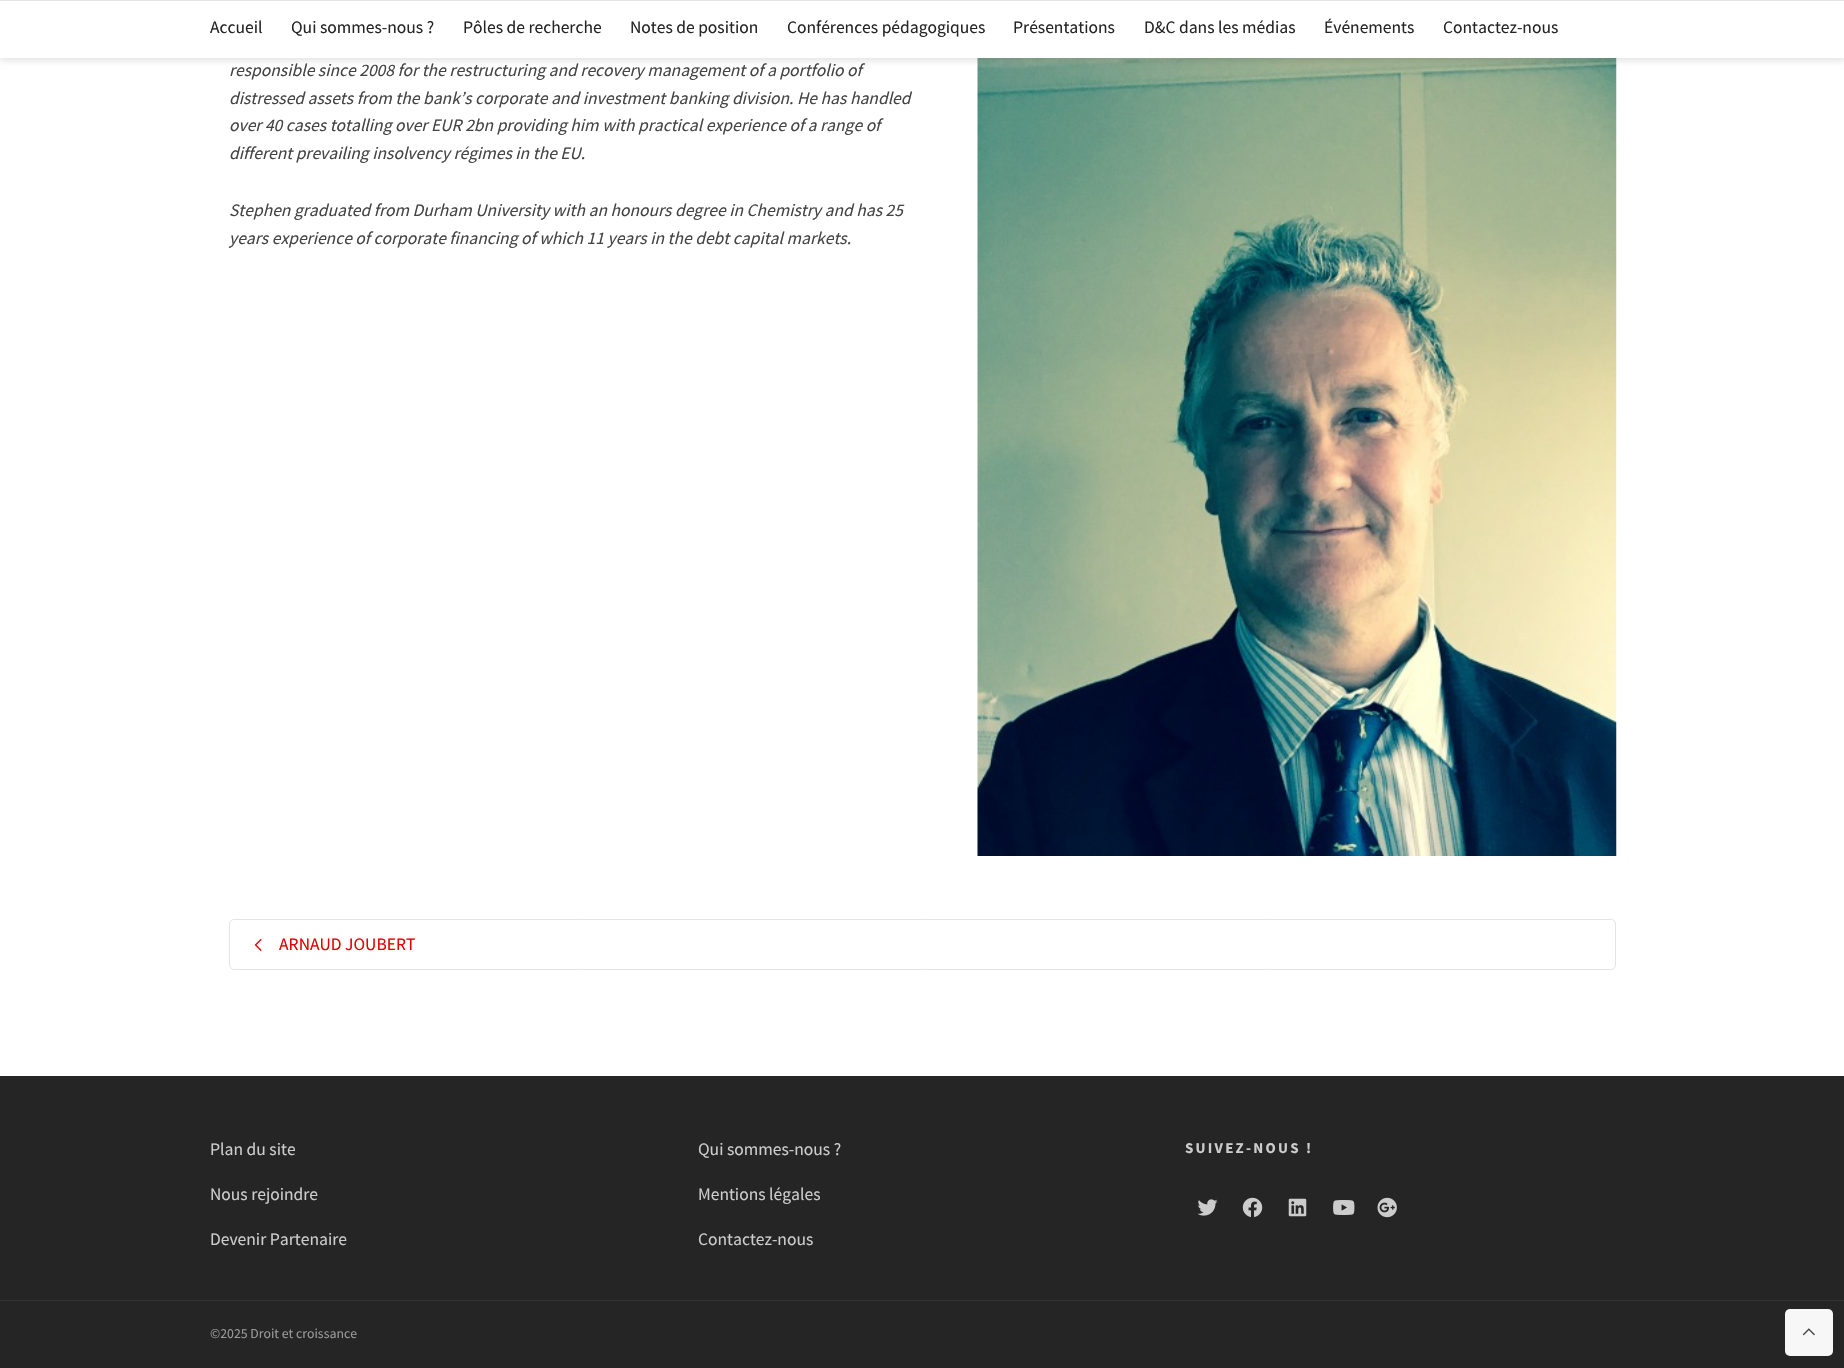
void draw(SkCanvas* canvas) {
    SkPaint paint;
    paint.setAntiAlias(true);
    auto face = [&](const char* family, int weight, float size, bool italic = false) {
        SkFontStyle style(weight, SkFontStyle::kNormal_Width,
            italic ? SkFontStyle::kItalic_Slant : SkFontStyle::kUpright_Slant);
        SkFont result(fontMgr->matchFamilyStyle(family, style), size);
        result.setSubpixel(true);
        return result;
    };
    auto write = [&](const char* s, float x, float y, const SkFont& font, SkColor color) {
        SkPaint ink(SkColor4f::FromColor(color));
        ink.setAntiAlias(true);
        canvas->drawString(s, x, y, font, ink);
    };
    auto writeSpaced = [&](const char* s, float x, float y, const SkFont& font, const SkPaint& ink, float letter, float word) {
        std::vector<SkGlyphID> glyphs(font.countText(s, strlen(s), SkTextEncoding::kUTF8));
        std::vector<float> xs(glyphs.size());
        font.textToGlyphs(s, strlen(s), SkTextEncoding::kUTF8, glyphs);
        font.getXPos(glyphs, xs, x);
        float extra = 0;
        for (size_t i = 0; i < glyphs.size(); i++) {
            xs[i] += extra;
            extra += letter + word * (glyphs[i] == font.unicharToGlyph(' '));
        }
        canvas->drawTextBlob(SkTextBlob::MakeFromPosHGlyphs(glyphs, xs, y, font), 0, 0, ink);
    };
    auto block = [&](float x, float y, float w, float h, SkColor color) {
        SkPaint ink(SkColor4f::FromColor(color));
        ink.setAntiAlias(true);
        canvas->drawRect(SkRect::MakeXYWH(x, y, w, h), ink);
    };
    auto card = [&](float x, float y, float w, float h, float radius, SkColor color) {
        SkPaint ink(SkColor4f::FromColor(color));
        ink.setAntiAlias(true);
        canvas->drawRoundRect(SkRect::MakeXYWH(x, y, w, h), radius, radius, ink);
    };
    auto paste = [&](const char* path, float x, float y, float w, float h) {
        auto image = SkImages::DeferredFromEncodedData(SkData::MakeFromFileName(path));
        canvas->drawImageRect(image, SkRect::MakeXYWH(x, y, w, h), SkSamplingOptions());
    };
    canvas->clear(SK_ColorWHITE);
    paste("pic1.png", 977, 58, 640, 798);
    paint.setColor(SkColorSetARGB(26, 0, 0, 0));
    paint.setMaskFilter(SkMaskFilter::MakeBlur(kNormal_SkBlurStyle, 3));
    canvas->drawRect(SkRect::MakeXYWH(0, 4, 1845, 57), paint);
    paint.setMaskFilter(nullptr);
    block(0, 1, 1844, 57, SK_ColorWHITE);
    block(0, 0, 1844, 1, SkColorSetRGB(228, 228, 228));
    auto kFont1 = face("Source Sans Pro", 400, 17.5f);
    write("Accueil", 210, 33, kFont1, SkColorSetRGB(37, 37, 37));
    write("Qui sommes-nous ?", 291, 33, kFont1, SkColorSetRGB(37, 37, 37));
    write("Pôles de recherche", 463, 33, kFont1, SkColorSetRGB(37, 37, 37));
    write("Notes de position", 630, 33, kFont1, SkColorSetRGB(37, 37, 37));
    write("Conférences pédagogiques", 787, 33, kFont1, SkColorSetRGB(37, 37, 37));
    write("Présentations", 1013, 33, kFont1, SkColorSetRGB(37, 37, 37));
    write("D&C dans les médias", 1144, 33, kFont1, SkColorSetRGB(37, 37, 37));
    write("Événements", 1324, 33, kFont1, SkColorSetRGB(37, 37, 37));
    write("Contactez-nous", 1443, 33, kFont1, SkColorSetRGB(37, 37, 37));
    auto kFont2 = face("Source Sans Pro", 400, 17.5f, true);
    write("responsible since 2008 for the restructuring and recovery management of a portfolio of", 229, 76, kFont2, SkColorSetRGB(68, 68, 68));
    write("distressed assets from the bank’s corporate and investment banking division. He has handled", 229, 104, kFont2, SkColorSetRGB(68, 68, 68));
    write("over 40 cases totalling over EUR 2bn providing him with practical experience of a range of", 229, 131, kFont2, SkColorSetRGB(68, 68, 68));
    write("different prevailing insolvency régimes in the EU.", 229, 159, kFont2, SkColorSetRGB(68, 68, 68));
    write("Stephen graduated from Durham University with an honours degree in Chemistry and has 25", 229, 216, kFont2, SkColorSetRGB(68, 68, 68));
    write("years experience of corporate financing of which 11 years in the debt capital markets.", 229, 244, kFont2, SkColorSetRGB(68, 68, 68));
    paint.setStyle(SkPaint::kStroke_Style);
    paint.setStrokeWidth(1);
    paint.setColor(SkColorSetRGB(228, 228, 228));
    canvas->drawRoundRect(SkRect::MakeXYWH(229.5f, 919.5f, 1386, 50), 4.5f, 4.5f, paint);
    paste("pic2.png", 254, 938, 8, 13);
    write("ARNAUD JOUBERT", 279, 950, kFont1, SkColorSetRGB(232, 0, 0));
    block(0, 1076, 1844, 224, SkColorSetRGB(37, 37, 37));
    write("Plan du site", 210, 1155, kFont1, SkColorSetRGB(204, 204, 204));
    write("Nous rejoindre", 210, 1200, kFont1, SkColorSetRGB(204, 204, 204));
    write("Devenir Partenaire", 210, 1245, kFont1, SkColorSetRGB(204, 204, 204));
    write("Qui sommes-nous ?", 698, 1155, kFont1, SkColorSetRGB(204, 204, 204));
    write("Mentions légales", 698, 1200, kFont1, SkColorSetRGB(204, 204, 204));
    write("Contactez-nous", 698, 1245, kFont1, SkColorSetRGB(204, 204, 204));
    auto kFont3 = face("Source Sans Pro", 700, 15);
    paint.setStyle(SkPaint::kFill_Style);
    paint.setColor(SkColorSetRGB(204, 204, 204));
    writeSpaced("SUIVEZ-NOUS !", 1185, 1153, kFont3, paint, 2.25f, 0);
    paste("pic3.png", 1197, 1199, 21, 17);
    paste("pic4.png", 1242, 1197, 21, 20);
    paste("pic5.png", 1288, 1198, 19, 19);
    paste("pic6.png", 1333, 1200, 22, 15);
    paste("pic7.png", 1377, 1197, 20, 21);
    block(0, 1301, 1844, 67, SkColorSetRGB(37, 37, 37));
    block(0, 1300, 1844, 1, SkColorSetRGB(51, 51, 51));
    auto kFont4 = face("Source Sans Pro", 400, 13.75f);
    write("©2025 Droit et croissance", 210, 1338, kFont4, SkColorSetRGB(153, 153, 153));
    card(1785, 1309, 48, 47, 5, SkColorSetRGB(247, 247, 247));
    paste("pic8.png", 1802, 1328, 13, 8);
}
